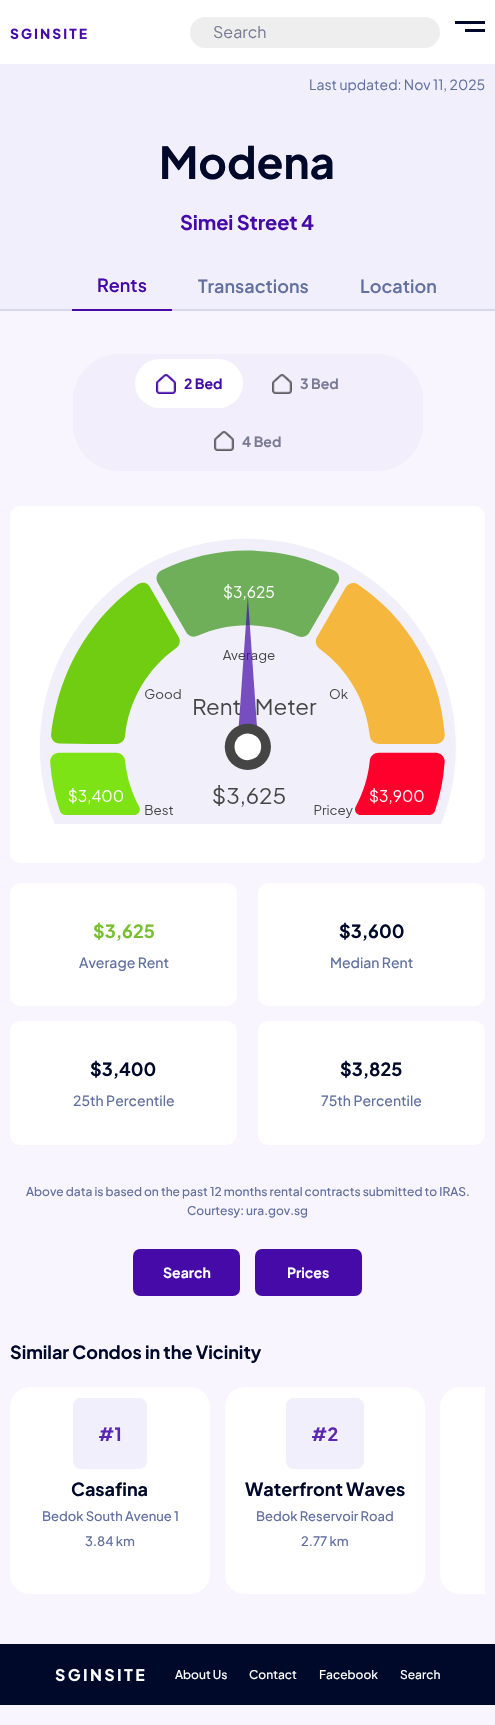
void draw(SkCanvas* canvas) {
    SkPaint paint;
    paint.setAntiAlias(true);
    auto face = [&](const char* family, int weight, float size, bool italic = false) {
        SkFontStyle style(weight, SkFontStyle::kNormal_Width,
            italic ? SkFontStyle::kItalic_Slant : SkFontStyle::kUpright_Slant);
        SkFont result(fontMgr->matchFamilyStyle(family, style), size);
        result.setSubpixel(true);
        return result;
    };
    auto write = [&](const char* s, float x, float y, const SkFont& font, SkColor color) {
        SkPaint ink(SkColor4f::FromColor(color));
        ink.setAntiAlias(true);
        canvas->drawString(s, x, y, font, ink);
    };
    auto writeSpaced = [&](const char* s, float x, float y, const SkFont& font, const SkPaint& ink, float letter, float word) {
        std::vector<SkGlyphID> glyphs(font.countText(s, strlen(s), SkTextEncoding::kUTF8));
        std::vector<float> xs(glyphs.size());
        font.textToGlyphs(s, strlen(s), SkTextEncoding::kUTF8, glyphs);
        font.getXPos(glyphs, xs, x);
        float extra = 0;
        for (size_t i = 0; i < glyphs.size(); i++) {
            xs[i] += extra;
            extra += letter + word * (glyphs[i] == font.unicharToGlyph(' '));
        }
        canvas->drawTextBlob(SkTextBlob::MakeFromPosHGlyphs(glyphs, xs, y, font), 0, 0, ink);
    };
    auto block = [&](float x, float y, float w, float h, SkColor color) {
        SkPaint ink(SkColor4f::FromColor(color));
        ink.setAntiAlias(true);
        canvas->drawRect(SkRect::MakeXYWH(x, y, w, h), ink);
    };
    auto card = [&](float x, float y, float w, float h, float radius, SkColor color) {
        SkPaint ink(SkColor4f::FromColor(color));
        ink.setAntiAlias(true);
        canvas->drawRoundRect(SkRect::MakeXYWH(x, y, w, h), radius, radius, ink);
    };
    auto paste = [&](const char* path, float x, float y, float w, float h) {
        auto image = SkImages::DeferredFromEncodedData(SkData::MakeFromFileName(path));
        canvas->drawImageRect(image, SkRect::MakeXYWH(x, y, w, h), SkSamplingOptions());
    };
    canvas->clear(SkColorSetRGB(248, 245, 255));
    block(0, 0, 495, 64, SK_ColorWHITE);
    paste("pic1.png", 10, 28, 77, 12);
    card(190, 17, 250, 31, 15.5f, SkColorSetRGB(238, 238, 238));
    auto kFont1 = face("Plus Jakarta Sans", 400, 16);
    write("Search", 213, 38, kFont1, SkColorSetRGB(121, 123, 147));
    block(455, 21, 30, 3, SkColorSetRGB(0, 9, 41));
    block(465, 29, 20, 3, SkColorSetRGB(0, 9, 41));
    block(0, 64, 495, 245, SkColorSetRGB(240, 239, 251));
    block(0, 309, 495, 2, SkColorSetRGB(215, 217, 235));
    auto kFont2 = face("Plus Jakarta Sans", 400, 14);
    write("Last updated: Nov 11, 2025", 309, 90, kFont2, SkColorSetRGB(98, 112, 160));
    auto kFont3 = face("Plus Jakarta Sans", 700, 44);
    write("Modena", 159, 179, kFont3, SkColorSetRGB(0, 9, 41));
    auto kFont4 = face("Plus Jakarta Sans", 700, 20);
    paint.setColor(SkColorSetRGB(69, 10, 167));
    writeSpaced("Simei Street 4", 180, 230, kFont4, paint, -0.1f, 0);
    block(72, 309, 100, 2, SkColorSetRGB(69, 10, 167));
    auto kFont5 = face("Plus Jakarta Sans", 600, 18);
    write("Rents", 97, 292, kFont5, SkColorSetRGB(69, 10, 167));
    write("Transactions", 198, 293, kFont5, SkColorSetRGB(98, 112, 160));
    write("Location", 360, 293, kFont5, SkColorSetRGB(98, 112, 160));
    card(73, 354, 350, 117, 46, SkColorSetRGB(243, 238, 252));
    card(135, 359, 108, 49, 24.5f, SK_ColorWHITE);
    paste("pic2.png", 156, 374, 20, 20);
    auto kFont6 = face("Plus Jakarta Sans", 700, 14);
    write("2 Bed", 184, 389, kFont6, SkColorSetRGB(69, 10, 167));
    paste("pic3.png", 272, 374, 20, 20);
    write("3 Bed", 300, 389, kFont6, SkColorSetRGB(121, 123, 147));
    paste("pic3.png", 214, 431, 20, 20);
    write("4 Bed", 242, 447, kFont6, SkColorSetRGB(121, 123, 147));
    card(10, 506, 475, 357, 10, SK_ColorWHITE);
    paste("pic4.png", 40, 539, 416, 285);
    card(10, 883, 227, 123, 10, SK_ColorWHITE);
    auto kFont7 = face("Plus Jakarta Sans", 700, 18);
    write("$3,625", 93, 938, kFont7, SkColorSetRGB(119, 191, 47));
    auto kFont8 = face("Plus Jakarta Sans", 500, 14);
    write("Average Rent", 79, 968, kFont8, SkColorSetRGB(98, 112, 160));
    card(258, 883, 227, 123, 10, SK_ColorWHITE);
    write("$3,600", 339, 938, kFont7, SkColorSetRGB(0, 9, 41));
    write("Median Rent", 330, 968, kFont8, SkColorSetRGB(98, 112, 160));
    card(10, 1021, 227, 124, 10, SK_ColorWHITE);
    write("$3,400", 90, 1076, kFont7, SkColorSetRGB(0, 9, 41));
    write("25th Percentile", 73, 1106, kFont8, SkColorSetRGB(98, 112, 160));
    card(258, 1021, 227, 124, 10, SK_ColorWHITE);
    write("$3,825", 340, 1076, kFont7, SkColorSetRGB(0, 9, 41));
    write("75th Percentile", 321, 1106, kFont8, SkColorSetRGB(98, 112, 160));
    auto kFont9 = face("Plus Jakarta Sans", 500, 12);
    write("Above data is based on the past 12 months rental contracts submitted to IRAS.", 26, 1196, kFont9, SkColorSetRGB(98, 112, 160));
    write("Courtesy: ura.gov.sg", 187, 1215, kFont9, SkColorSetRGB(98, 112, 160));
    card(133, 1249, 107, 47, 7, SkColorSetRGB(69, 10, 167));
    write("Search", 163, 1278, kFont6, SK_ColorWHITE);
    card(255, 1249, 107, 47, 7, SkColorSetRGB(69, 10, 167));
    write("Prices", 287, 1278, kFont6, SK_ColorWHITE);
    write("Similar Condos in the Vicinity", 10, 1359, kFont7, SkColorSetRGB(0, 9, 41));
    card(10, 1387, 200, 207, 20, SK_ColorWHITE);
    card(73, 1398, 74, 71, 8, SkColorSetRGB(240, 239, 251));
    write("#1", 98, 1441, kFont7, SkColorSetRGB(91, 38, 177));
    write("Casafina", 71, 1496, kFont7, SkColorSetRGB(0, 9, 41));
    auto kFont10 = face("Plus Jakarta Sans", 500, 13);
    write("Bedok South Avenue 1", 42, 1521, kFont10, SkColorSetRGB(98, 112, 160));
    write("3.84 km", 85, 1546, kFont10, SkColorSetRGB(98, 112, 160));
    card(225, 1387, 200, 207, 20, SK_ColorWHITE);
    card(286, 1398, 78, 71, 8, SkColorSetRGB(240, 239, 251));
    write("#2", 311, 1441, kFont7, SkColorSetRGB(91, 38, 177));
    write("Waterfront Waves", 245, 1496, kFont7, SkColorSetRGB(0, 9, 41));
    write("Bedok Reservoir Road", 256, 1521, kFont10, SkColorSetRGB(98, 112, 160));
    write("2.77 km", 301, 1546, kFont10, SkColorSetRGB(98, 112, 160));
    paint.setColor(SK_ColorWHITE);
    canvas->drawPath(SkPathBuilder().moveTo(460, 1387).lineTo(485, 1387).lineTo(485, 1594).lineTo(460, 1594).cubicTo(449, 1594, 440, 1585, 440, 1574).lineTo(440, 1407).cubicTo(440, 1396, 449, 1387, 460, 1387).close().detach(), paint);
    block(0, 1644, 495, 61, SkColorSetRGB(0, 9, 41));
    paste("pic5.png", 55, 1668, 90, 14);
    write("About Us", 175, 1679, kFont9, SK_ColorWHITE);
    write("Contact", 249, 1679, kFont9, SK_ColorWHITE);
    write("Facebook", 319, 1679, kFont9, SK_ColorWHITE);
    write("Search", 400, 1679, kFont9, SK_ColorWHITE);
}
